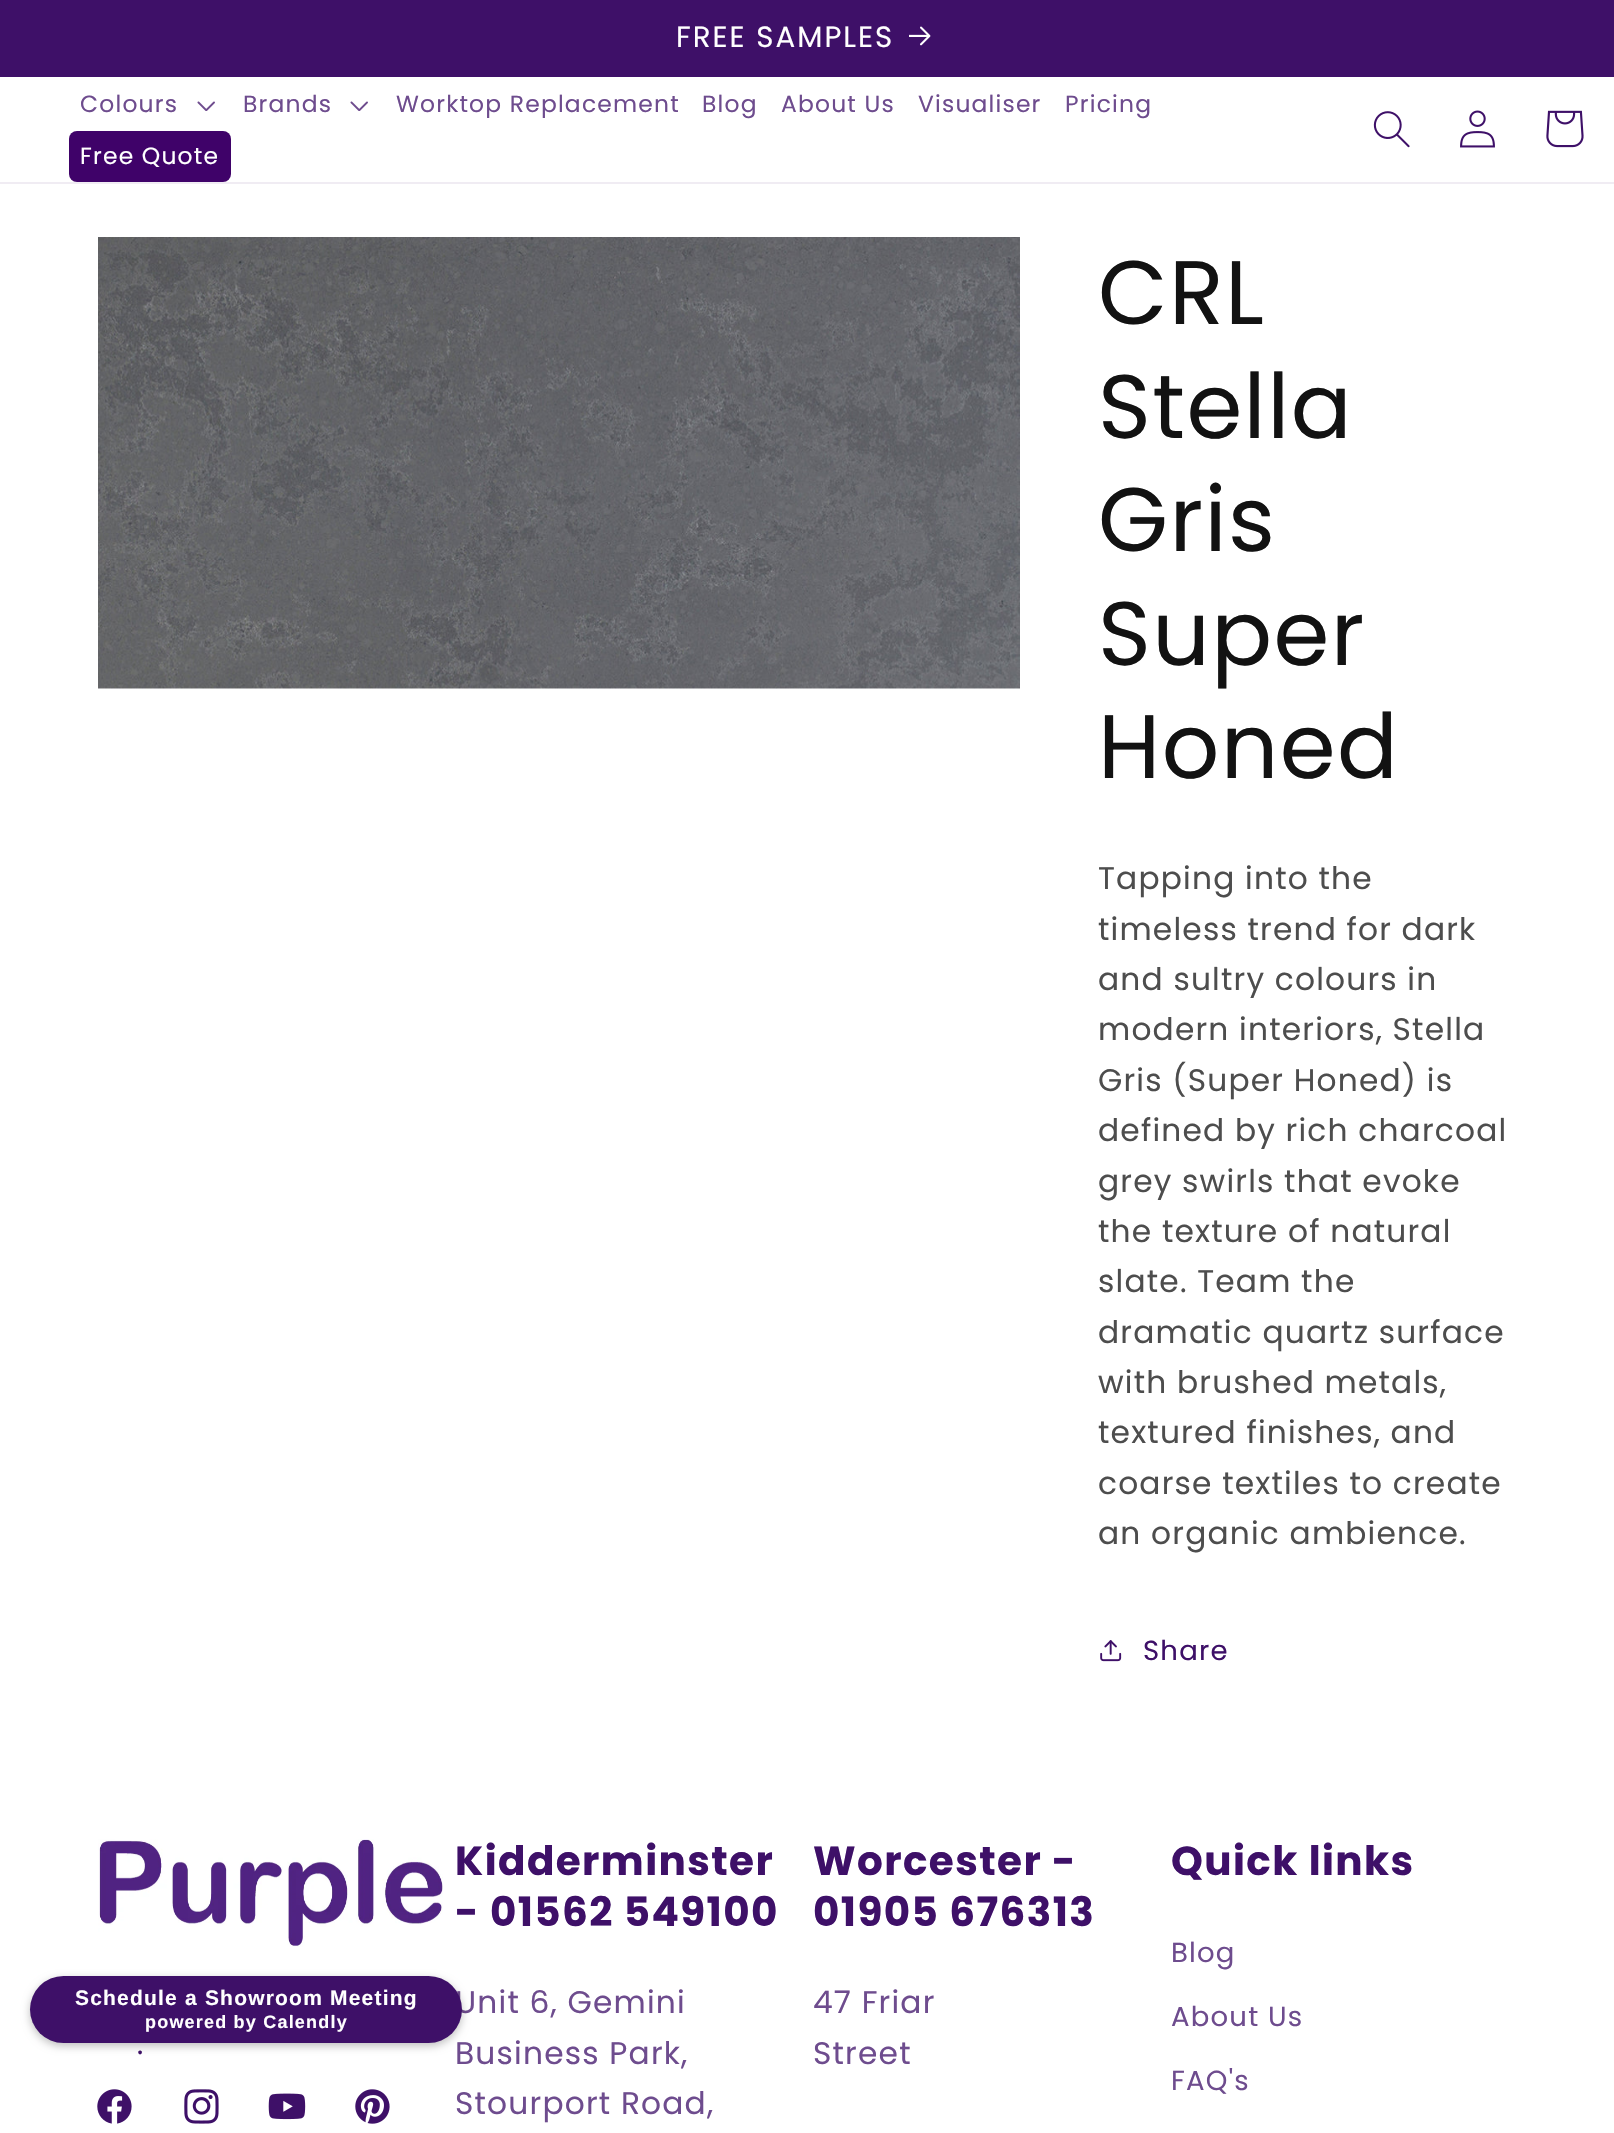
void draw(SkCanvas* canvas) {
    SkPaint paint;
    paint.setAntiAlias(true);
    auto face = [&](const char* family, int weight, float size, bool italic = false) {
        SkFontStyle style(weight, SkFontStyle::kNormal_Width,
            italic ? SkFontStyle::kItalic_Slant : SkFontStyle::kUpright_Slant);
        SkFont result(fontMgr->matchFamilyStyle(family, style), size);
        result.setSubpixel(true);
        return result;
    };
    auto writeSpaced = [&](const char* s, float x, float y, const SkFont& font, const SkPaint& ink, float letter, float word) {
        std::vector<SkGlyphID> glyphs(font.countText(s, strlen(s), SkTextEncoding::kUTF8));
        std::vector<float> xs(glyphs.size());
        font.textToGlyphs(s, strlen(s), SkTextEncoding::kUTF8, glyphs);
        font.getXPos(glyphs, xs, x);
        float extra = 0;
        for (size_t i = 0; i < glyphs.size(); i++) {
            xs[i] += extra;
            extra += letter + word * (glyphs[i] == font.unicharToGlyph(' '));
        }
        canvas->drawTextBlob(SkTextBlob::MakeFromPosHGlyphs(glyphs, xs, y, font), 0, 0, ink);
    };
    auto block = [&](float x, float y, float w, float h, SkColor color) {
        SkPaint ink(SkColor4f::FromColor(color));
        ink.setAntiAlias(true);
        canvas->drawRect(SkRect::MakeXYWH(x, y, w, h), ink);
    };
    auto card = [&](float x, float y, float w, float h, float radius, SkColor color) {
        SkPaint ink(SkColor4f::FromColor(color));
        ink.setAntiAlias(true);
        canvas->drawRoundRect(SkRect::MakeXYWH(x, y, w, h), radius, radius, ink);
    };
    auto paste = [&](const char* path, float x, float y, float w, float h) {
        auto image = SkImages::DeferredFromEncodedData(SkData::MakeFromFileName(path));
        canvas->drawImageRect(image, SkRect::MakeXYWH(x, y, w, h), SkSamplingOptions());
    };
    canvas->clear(SK_ColorWHITE);
    block(0, 0, 1614, 77, SkColorSetRGB(62, 16, 104));
    auto kFont1 = face("Poppins", 400, 29.25f);
    paint.setColor(SK_ColorWHITE);
    writeSpaced("FREE SAMPLES", 676, 47, kFont1, paint, 2, 0);
    paste("pic1.png", 909, 26, 22, 20);
    block(0, 182, 1614, 2, SkColorSetRGB(240, 236, 243));
    auto kFont2 = face("Poppins", 400, 23.4f);
    paint.setColor(SkColorSetRGB(110, 76, 142));
    writeSpaced("Colours", 80, 112, kFont2, paint, 1.2f, 0);
    paste("pic2.png", 197, 101, 18, 10);
    writeSpaced("Brands", 243, 112, kFont2, paint, 1.2f, 0);
    paste("pic2.png", 350, 101, 18, 10);
    writeSpaced("Worktop Replacement", 396, 112, kFont2, paint, 1.2f, 0);
    writeSpaced("Blog", 702, 112, kFont2, paint, 1.2f, 0);
    writeSpaced("About Us", 781, 112, kFont2, paint, 1.2f, 0);
    writeSpaced("Visualiser", 918, 112, kFont2, paint, 1.2f, 0);
    writeSpaced("Pricing", 1065, 112, kFont2, paint, 1.2f, 0);
    card(69, 131, 162, 51, 8, SkColorSetRGB(63, 2, 105));
    paint.setColor(SK_ColorWHITE);
    writeSpaced("Free Quote", 80, 164, kFont2, paint, 1.2f, 0);
    paste("pic3.png", 1373, 111, 37, 37);
    paste("pic4.png", 1460, 110, 35, 38);
    paste("pic5.png", 1546, 110, 38, 38);
    paste("pic6.png", 98, 237, 922, 452);
    auto kFont3 = face("Poppins", 400, 90);
    paint.setColor(SkColorSetRGB(18, 18, 18));
    writeSpaced("CRL", 1098, 324, kFont3, paint, 1.4f, 0);
    writeSpaced("Stella", 1098, 438, kFont3, paint, 1.4f, 0);
    writeSpaced("Gris", 1098, 551, kFont3, paint, 1.4f, 0);
    writeSpaced("Super", 1098, 665, kFont3, paint, 1.4f, 0);
    writeSpaced("Honed", 1098, 778, kFont3, paint, 1.4f, 0);
    auto kFont4 = face("Poppins", 400, 31.25f);
    paint.setColor(SkColorSetRGB(77, 77, 77));
    writeSpaced("Tapping into the", 1098, 889, kFont4, paint, 1.2f, 0);
    writeSpaced("timeless trend for dark", 1098, 940, kFont4, paint, 1.2f, 0);
    writeSpaced("and sultry colours in", 1098, 990, kFont4, paint, 1.2f, 0);
    writeSpaced("modern interiors, Stella", 1098, 1040, kFont4, paint, 1.2f, 0);
    writeSpaced("Gris (Super Honed) is", 1098, 1091, kFont4, paint, 1.2f, 0);
    writeSpaced("defined by rich charcoal", 1098, 1141, kFont4, paint, 1.2f, 0);
    writeSpaced("grey swirls that evoke", 1098, 1192, kFont4, paint, 1.2f, 0);
    writeSpaced("the texture of natural", 1098, 1242, kFont4, paint, 1.2f, 0);
    writeSpaced("slate. Team the", 1098, 1292, kFont4, paint, 1.2f, 0);
    writeSpaced("dramatic quartz surface", 1098, 1343, kFont4, paint, 1.2f, 0);
    writeSpaced("with brushed metals,", 1098, 1393, kFont4, paint, 1.2f, 0);
    writeSpaced("textured finishes, and", 1098, 1443, kFont4, paint, 1.2f, 0);
    writeSpaced("coarse textiles to create", 1098, 1494, kFont4, paint, 1.2f, 0);
    writeSpaced("an organic ambience.", 1098, 1544, kFont4, paint, 1.2f, 0);
    paste("pic7.png", 1100, 1640, 22, 22);
    auto kFont5 = face("Poppins", 400, 27.5f);
    paint.setColor(SkColorSetRGB(62, 16, 104));
    writeSpaced("Share", 1143, 1660, kFont5, paint, 1.2f, 0);
    paste("pic8.png", 98, 1839, 345, 108);
    writeSpaced(".", 137, 2054, kFont1, paint, 1.4f, 0);
    paste("pic9.png", 97, 2089, 35, 35);
    paste("pic10.png", 184, 2089, 35, 35);
    paste("pic11.png", 268, 2093, 38, 27);
    paste("pic12.png", 355, 2089, 35, 35);
    auto kFont6 = face("Poppins", 700, 40.5f);
    writeSpaced("Kidderminster", 455, 1875, kFont6, paint, 1.4f, 0);
    writeSpaced("- 01562 549100", 455, 1926, kFont6, paint, 1.4f, 0);
    paint.setColor(SkColorSetRGB(110, 76, 142));
    writeSpaced("Unit 6, Gemini", 455, 2013, kFont4, paint, 1.2f, 0);
    writeSpaced("Business Park,", 455, 2064, kFont4, paint, 1.2f, 0);
    writeSpaced("Stourport Road,", 455, 2114, kFont4, paint, 1.2f, 0);
    paint.setColor(SkColorSetRGB(62, 16, 104));
    writeSpaced("Worcester -", 813, 1875, kFont6, paint, 1.4f, 0);
    writeSpaced("01905 676313", 813, 1926, kFont6, paint, 1.4f, 0);
    paint.setColor(SkColorSetRGB(110, 76, 142));
    writeSpaced("47 Friar", 813, 2013, kFont4, paint, 1.2f, 0);
    writeSpaced("Street", 813, 2064, kFont4, paint, 1.2f, 0);
    paint.setColor(SkColorSetRGB(62, 16, 104));
    writeSpaced("Quick links", 1171, 1875, kFont6, paint, 1.4f, 0);
    paint.setColor(SkColorSetRGB(110, 76, 142));
    writeSpaced("Blog", 1171, 1962, kFont5, paint, 1.2f, 0);
    writeSpaced("About Us", 1171, 2026, kFont5, paint, 1.2f, 0);
    writeSpaced("FAQ's", 1171, 2090, kFont5, paint, 1.2f, 0);
    paint.setColor(SkColorSetARGB(64, 0, 0, 0));
    paint.setMaskFilter(SkMaskFilter::MakeBlur(kNormal_SkBlurStyle, 4));
    canvas->drawRoundRect(SkRect::MakeXYWH(30, 1979, 432, 67), 33.5f, 33.5f, paint);
    paint.setMaskFilter(nullptr);
    card(30, 1976, 432, 67, 33.5f, SkColorSetRGB(62, 16, 104));
    auto kFont7 = face("Liberation Sans", 700, 21);
    paint.setColor(SK_ColorWHITE);
    writeSpaced("Schedule a Showroom Meeting", 75, 2005, kFont7, paint, 1.2f, 0);
    auto kFont8 = face("Liberation Sans", 700, 18);
    writeSpaced("powered by Calendly", 145, 2028, kFont8, paint, 1.2f, 0);
}
